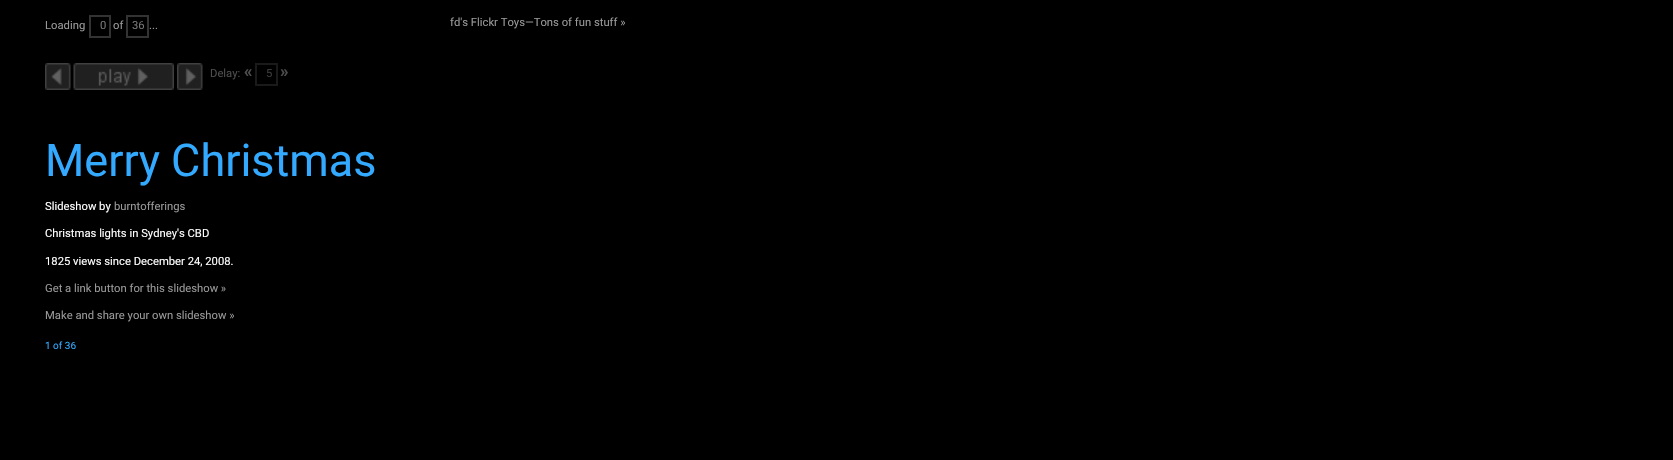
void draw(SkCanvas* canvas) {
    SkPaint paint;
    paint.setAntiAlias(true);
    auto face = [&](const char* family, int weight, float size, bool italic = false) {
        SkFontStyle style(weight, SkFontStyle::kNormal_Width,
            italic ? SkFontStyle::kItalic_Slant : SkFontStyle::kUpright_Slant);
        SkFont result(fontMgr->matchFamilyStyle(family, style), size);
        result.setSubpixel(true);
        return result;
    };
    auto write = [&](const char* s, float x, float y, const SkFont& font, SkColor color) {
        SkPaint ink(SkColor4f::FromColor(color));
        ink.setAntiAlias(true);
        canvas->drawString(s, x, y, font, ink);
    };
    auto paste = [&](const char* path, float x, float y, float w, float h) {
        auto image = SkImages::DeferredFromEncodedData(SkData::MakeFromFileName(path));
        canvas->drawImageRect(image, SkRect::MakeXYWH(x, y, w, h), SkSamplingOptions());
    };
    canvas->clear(SK_ColorBLACK);
    auto kFont1 = face("Roboto", 400, 11.25f);
    write("Loading", 45, 29, kFont1, SkColorSetRGB(153, 153, 153));
    paint.setStyle(SkPaint::kStroke_Style);
    paint.setStrokeWidth(2);
    paint.setColor(SkColorSetRGB(51, 51, 51));
    canvas->drawRect(SkRect::MakeXYWH(90, 16, 20, 21), paint);
    write("0", 100, 29, kFont1, SkColorSetRGB(119, 119, 119));
    write("of", 113, 29, kFont1, SkColorSetRGB(153, 153, 153));
    canvas->drawRect(SkRect::MakeXYWH(127, 16, 21, 21), paint);
    write("36", 132, 29, kFont1, SkColorSetRGB(119, 119, 119));
    write("...", 149, 29, kFont1, SkColorSetRGB(153, 153, 153));
    write("fd's Flickr Toys—Tons of fun stuff »", 450, 26, kFont1, SkColorSetRGB(153, 153, 153));
    paste("pic1.png", 45, 63, 26, 27);
    paste("pic2.png", 73, 63, 101, 27);
    paste("pic3.png", 177, 63, 26, 27);
    write("Delay:", 210, 77, kFont1, SkColorSetRGB(77, 77, 77));
    auto kFont2 = face("Roboto", 700, 17);
    write("«", 244, 77, kFont2, SkColorSetRGB(77, 77, 77));
    paint.setColor(SkColorSetRGB(26, 26, 26));
    canvas->drawRect(SkRect::MakeXYWH(256, 64, 21, 21), paint);
    write("5", 266, 77, kFont1, SkColorSetRGB(60, 60, 60));
    write("»", 280, 77, kFont2, SkColorSetRGB(77, 77, 77));
    auto kFont3 = face("Roboto", 400, 45);
    write("Merry Christmas", 45, 176, kFont3, SkColorSetRGB(51, 170, 255));
    write("Slideshow by", 45, 210, kFont1, SK_ColorWHITE);
    write("burntofferings", 114, 210, kFont1, SkColorSetRGB(153, 153, 153));
    write("Christmas lights in Sydney's CBD", 45, 237, kFont1, SK_ColorWHITE);
    write("1825 views since December 24, 2008.", 45, 265, kFont1, SK_ColorWHITE);
    write("Get a link button for this slideshow »", 45, 292, kFont1, SkColorSetRGB(153, 153, 153));
    write("Make and share your own slideshow »", 45, 319, kFont1, SkColorSetRGB(153, 153, 153));
    auto kFont4 = face("Roboto", 400, 10);
    write("1 of 36", 45, 349, kFont4, SkColorSetRGB(51, 170, 255));
}
